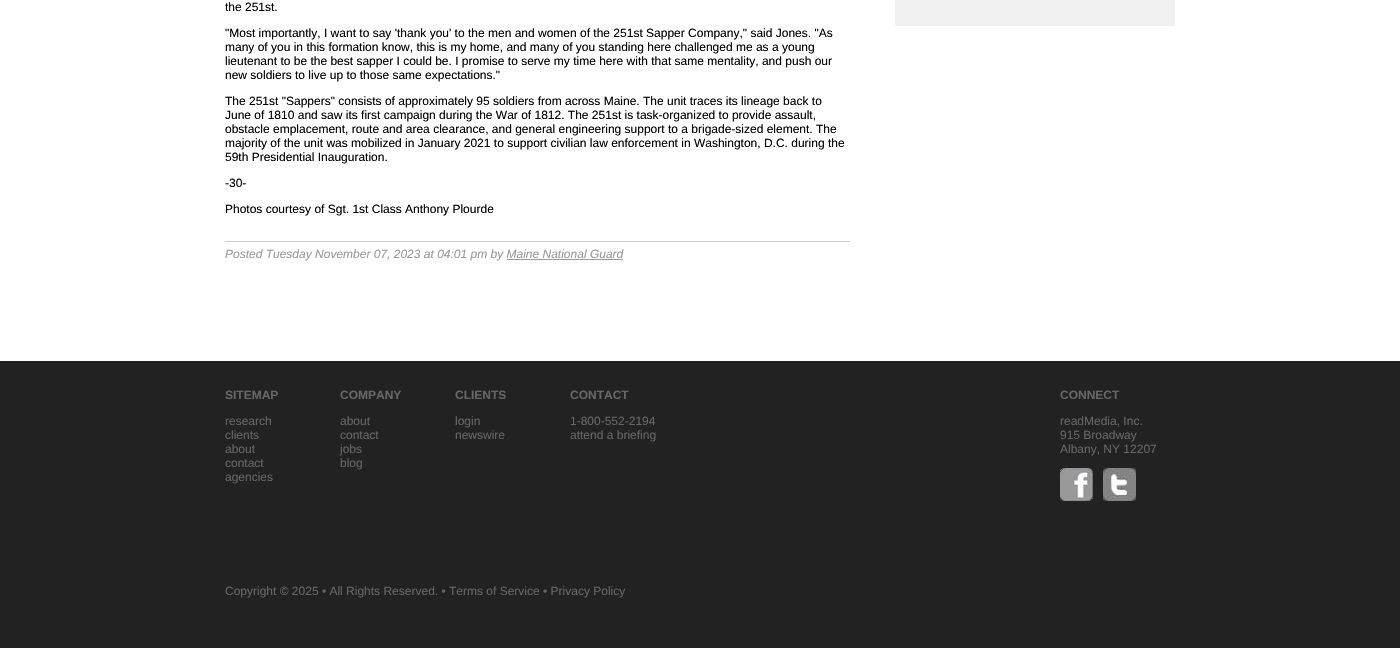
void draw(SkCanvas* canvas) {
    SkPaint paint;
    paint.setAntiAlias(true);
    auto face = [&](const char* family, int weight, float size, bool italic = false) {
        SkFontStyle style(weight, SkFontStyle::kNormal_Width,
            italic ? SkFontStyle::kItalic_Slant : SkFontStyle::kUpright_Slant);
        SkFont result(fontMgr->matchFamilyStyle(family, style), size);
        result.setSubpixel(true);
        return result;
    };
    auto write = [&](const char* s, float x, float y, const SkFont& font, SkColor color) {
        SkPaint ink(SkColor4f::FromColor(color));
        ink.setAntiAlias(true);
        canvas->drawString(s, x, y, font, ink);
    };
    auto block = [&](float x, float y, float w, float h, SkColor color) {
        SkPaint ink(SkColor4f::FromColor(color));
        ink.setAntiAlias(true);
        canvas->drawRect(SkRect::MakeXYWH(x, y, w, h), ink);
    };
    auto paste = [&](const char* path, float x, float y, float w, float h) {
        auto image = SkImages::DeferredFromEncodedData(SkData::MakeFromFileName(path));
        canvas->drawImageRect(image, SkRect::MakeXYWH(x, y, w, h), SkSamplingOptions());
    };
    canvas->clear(SkColorSetRGB(34, 34, 34));
    block(0, 0, 1400, 361, SK_ColorWHITE);
    auto kFont1 = face("Liberation Sans", 400, 12);
    write("the 251st.", 225, 11, kFont1, SK_ColorBLACK);
    write("\"Most importantly, I want to say 'thank you' to the men and women of the 251st Sapper Company,\" said Jones. \"As", 225, 37, kFont1, SK_ColorBLACK);
    write("many of you in this formation know, this is my home, and many of you standing here challenged me as a young", 225, 51, kFont1, SK_ColorBLACK);
    write("lieutenant to be the best sapper I could be. I promise to serve my time here with that same mentality, and push our", 225, 65, kFont1, SK_ColorBLACK);
    write("new soldiers to live up to those same expectations.\"", 225, 79, kFont1, SK_ColorBLACK);
    write("The 251st \"Sappers\" consists of approximately 95 soldiers from across Maine. The unit traces its lineage back to", 225, 105, kFont1, SK_ColorBLACK);
    write("June of 1810 and saw its first campaign during the War of 1812. The 251st is task-organized to provide assault,", 225, 119, kFont1, SK_ColorBLACK);
    write("obstacle emplacement, route and area clearance, and general engineering support to a brigade-sized element. The", 225, 133, kFont1, SK_ColorBLACK);
    write("majority of the unit was mobilized in January 2021 to support civilian law enforcement in Washington, D.C. during the", 225, 147, kFont1, SK_ColorBLACK);
    write("59th Presidential Inauguration.", 225, 161, kFont1, SK_ColorBLACK);
    write("-30-", 225, 187, kFont1, SK_ColorBLACK);
    write("Photos courtesy of Sgt. 1st Class Anthony Plourde", 225, 213, kFont1, SK_ColorBLACK);
    block(225, 241, 625, 1, SkColorSetRGB(204, 204, 204));
    auto kFont2 = face("Liberation Sans", 400, 12, true);
    write("Posted Tuesday November 07, 2023 at 04:01 pm by Maine National Guard", 225, 258, kFont2, SkColorSetRGB(153, 153, 153));
    block(507, 259, 116, 1, SkColorSetRGB(153, 153, 153));
    block(895, 0, 280, 26, SkColorSetRGB(240, 240, 240));
    auto kFont3 = face("Liberation Sans", 700, 12);
    write("SITEMAP", 225, 399, kFont3, SkColorSetRGB(102, 102, 102));
    write("research", 225, 425, kFont1, SkColorSetRGB(102, 102, 102));
    write("clients", 225, 439, kFont1, SkColorSetRGB(102, 102, 102));
    write("about", 225, 453, kFont1, SkColorSetRGB(102, 102, 102));
    write("contact", 225, 467, kFont1, SkColorSetRGB(102, 102, 102));
    write("agencies", 225, 481, kFont1, SkColorSetRGB(102, 102, 102));
    write("COMPANY", 340, 399, kFont3, SkColorSetRGB(102, 102, 102));
    write("about", 340, 425, kFont1, SkColorSetRGB(102, 102, 102));
    write("contact", 340, 439, kFont1, SkColorSetRGB(102, 102, 102));
    write("jobs", 340, 453, kFont1, SkColorSetRGB(102, 102, 102));
    write("blog", 340, 467, kFont1, SkColorSetRGB(102, 102, 102));
    write("CLIENTS", 455, 399, kFont3, SkColorSetRGB(102, 102, 102));
    write("login", 455, 425, kFont1, SkColorSetRGB(102, 102, 102));
    write("newswire", 455, 439, kFont1, SkColorSetRGB(102, 102, 102));
    write("CONTACT", 570, 399, kFont3, SkColorSetRGB(102, 102, 102));
    write("1-800-552-2194", 570, 425, kFont1, SkColorSetRGB(102, 102, 102));
    write("attend a briefing", 570, 439, kFont1, SkColorSetRGB(102, 102, 102));
    write("CONNECT", 1060, 399, kFont3, SkColorSetRGB(102, 102, 102));
    write("readMedia, Inc.", 1060, 425, kFont1, SkColorSetRGB(102, 102, 102));
    write("915 Broadway", 1060, 439, kFont1, SkColorSetRGB(102, 102, 102));
    write("Albany, NY 12207", 1060, 453, kFont1, SkColorSetRGB(102, 102, 102));
    paste("pic1.png", 1060, 468, 33, 33);
    paste("pic2.png", 1103, 468, 33, 33);
    write("Copyright © 2025 • All Rights Reserved. • Terms of Service • Privacy Policy", 225, 595, kFont1, SkColorSetRGB(102, 102, 102));
}
